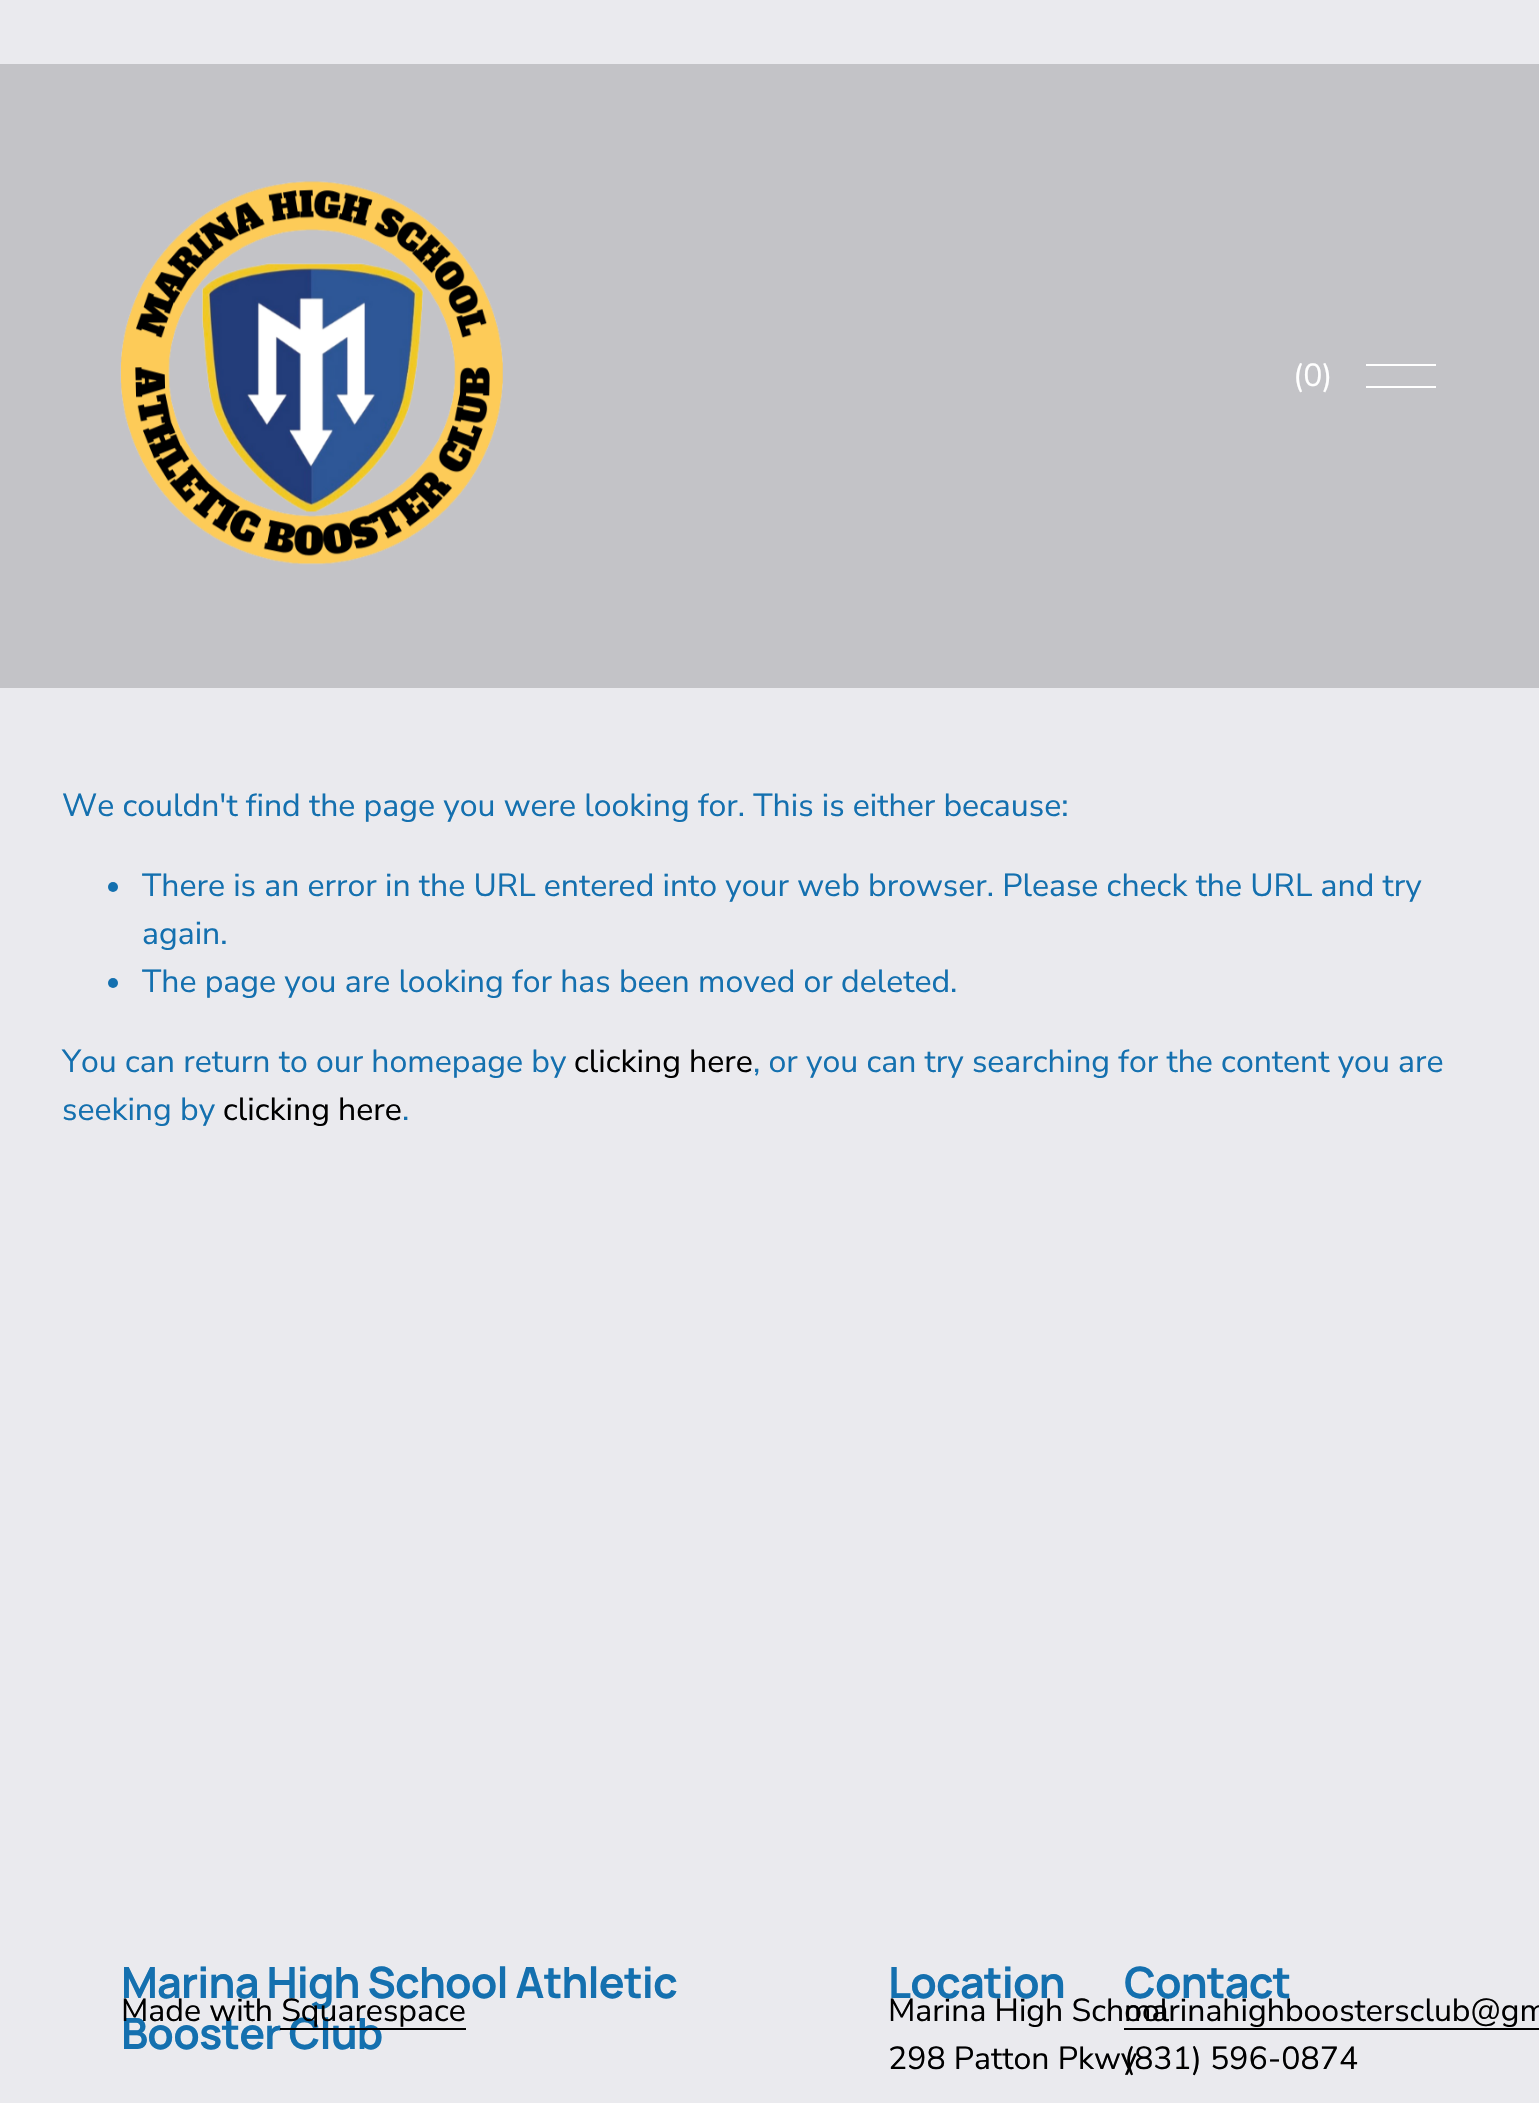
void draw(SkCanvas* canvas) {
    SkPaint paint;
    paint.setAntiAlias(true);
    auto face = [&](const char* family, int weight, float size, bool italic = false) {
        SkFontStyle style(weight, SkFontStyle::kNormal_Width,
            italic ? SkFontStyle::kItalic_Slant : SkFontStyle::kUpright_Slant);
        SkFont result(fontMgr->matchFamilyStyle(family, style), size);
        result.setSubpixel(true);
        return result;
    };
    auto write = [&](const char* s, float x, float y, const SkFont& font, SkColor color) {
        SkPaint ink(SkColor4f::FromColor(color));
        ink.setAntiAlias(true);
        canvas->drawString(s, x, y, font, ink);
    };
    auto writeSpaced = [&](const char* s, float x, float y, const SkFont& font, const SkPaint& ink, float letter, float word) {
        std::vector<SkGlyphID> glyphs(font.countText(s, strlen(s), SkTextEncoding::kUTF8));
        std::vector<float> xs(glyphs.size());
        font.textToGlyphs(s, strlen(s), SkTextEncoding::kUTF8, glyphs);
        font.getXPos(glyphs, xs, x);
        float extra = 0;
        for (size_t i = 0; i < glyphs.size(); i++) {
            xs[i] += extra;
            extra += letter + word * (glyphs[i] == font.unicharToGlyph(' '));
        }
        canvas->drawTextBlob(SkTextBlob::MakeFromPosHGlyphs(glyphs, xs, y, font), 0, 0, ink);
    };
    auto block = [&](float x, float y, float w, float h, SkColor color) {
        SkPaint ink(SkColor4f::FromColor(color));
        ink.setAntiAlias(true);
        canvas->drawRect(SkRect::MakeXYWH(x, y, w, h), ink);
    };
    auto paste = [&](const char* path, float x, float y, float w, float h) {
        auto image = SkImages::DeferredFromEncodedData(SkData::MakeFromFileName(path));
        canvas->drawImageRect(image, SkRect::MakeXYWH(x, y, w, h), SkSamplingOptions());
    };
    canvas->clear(SkColorSetRGB(234, 234, 238));
    block(0, 64, 1539, 624, SkColorSetRGB(195, 195, 199));
    paste("pic1.png", 120, 181, 383, 384);
    auto kFont1 = face("Nunito Sans", 400, 32);
    write("(0)", 1293, 386, kFont1, SK_ColorWHITE);
    block(1366, 364, 70, 2, SK_ColorWHITE);
    block(1366, 386, 70, 2, SK_ColorWHITE);
    write("We couldn't find the page you were looking for. This is either because:", 62, 816, kFont1, SkColorSetRGB(20, 112, 175));
    paint.setColor(SkColorSetRGB(20, 112, 175));
    canvas->drawCircle(113, 887, 5, paint);
    write("There is an error in the URL entered into your web browser. Please check the URL and try", 142, 896, kFont1, SkColorSetRGB(20, 112, 175));
    write("again.", 142, 944, kFont1, SkColorSetRGB(20, 112, 175));
    canvas->drawCircle(113, 983, 5, paint);
    write("The page you are looking for has been moved or deleted.", 142, 992, kFont1, SkColorSetRGB(20, 112, 175));
    write("You can return to our homepage by", 62, 1072, kFont1, SkColorSetRGB(20, 112, 175));
    write("clicking here", 574, 1072, kFont1, SK_ColorBLACK);
    write(", or you can try searching for the content you are", 753, 1072, kFont1, SkColorSetRGB(20, 112, 175));
    write("seeking by", 62, 1120, kFont1, SkColorSetRGB(20, 112, 175));
    write("clicking here", 223, 1120, kFont1, SK_ColorBLACK);
    write(".", 402, 1120, kFont1, SkColorSetRGB(20, 112, 175));
    auto kFont2 = face("Manrope", 700, 43.1f);
    writeSpaced("Marina High School Athletic", 121, 1998, kFont2, paint, -0.85f, 0);
    writeSpaced("Booster Club", 121, 2049, kFont2, paint, -0.85f, 0);
    writeSpaced("Location", 888, 1998, kFont2, paint, -0.85f, 0);
    writeSpaced("Contact", 1124, 1998, kFont2, paint, -0.85f, 0);
    write("Made with Squarespace", 121, 2021, kFont1, SK_ColorBLACK);
    block(280, 2028, 186, 2, SK_ColorBLACK);
    write("Marina High School", 888, 2021, kFont1, SK_ColorBLACK);
    write("298 Patton Pkwy", 888, 2069, kFont1, SK_ColorBLACK);
    write("marinahighboostersclub@gm", 1124, 2021, kFont1, SK_ColorBLACK);
    block(1124, 2028, 415, 2, SK_ColorBLACK);
    write("(831) 596-0874", 1124, 2069, kFont1, SK_ColorBLACK);
}
